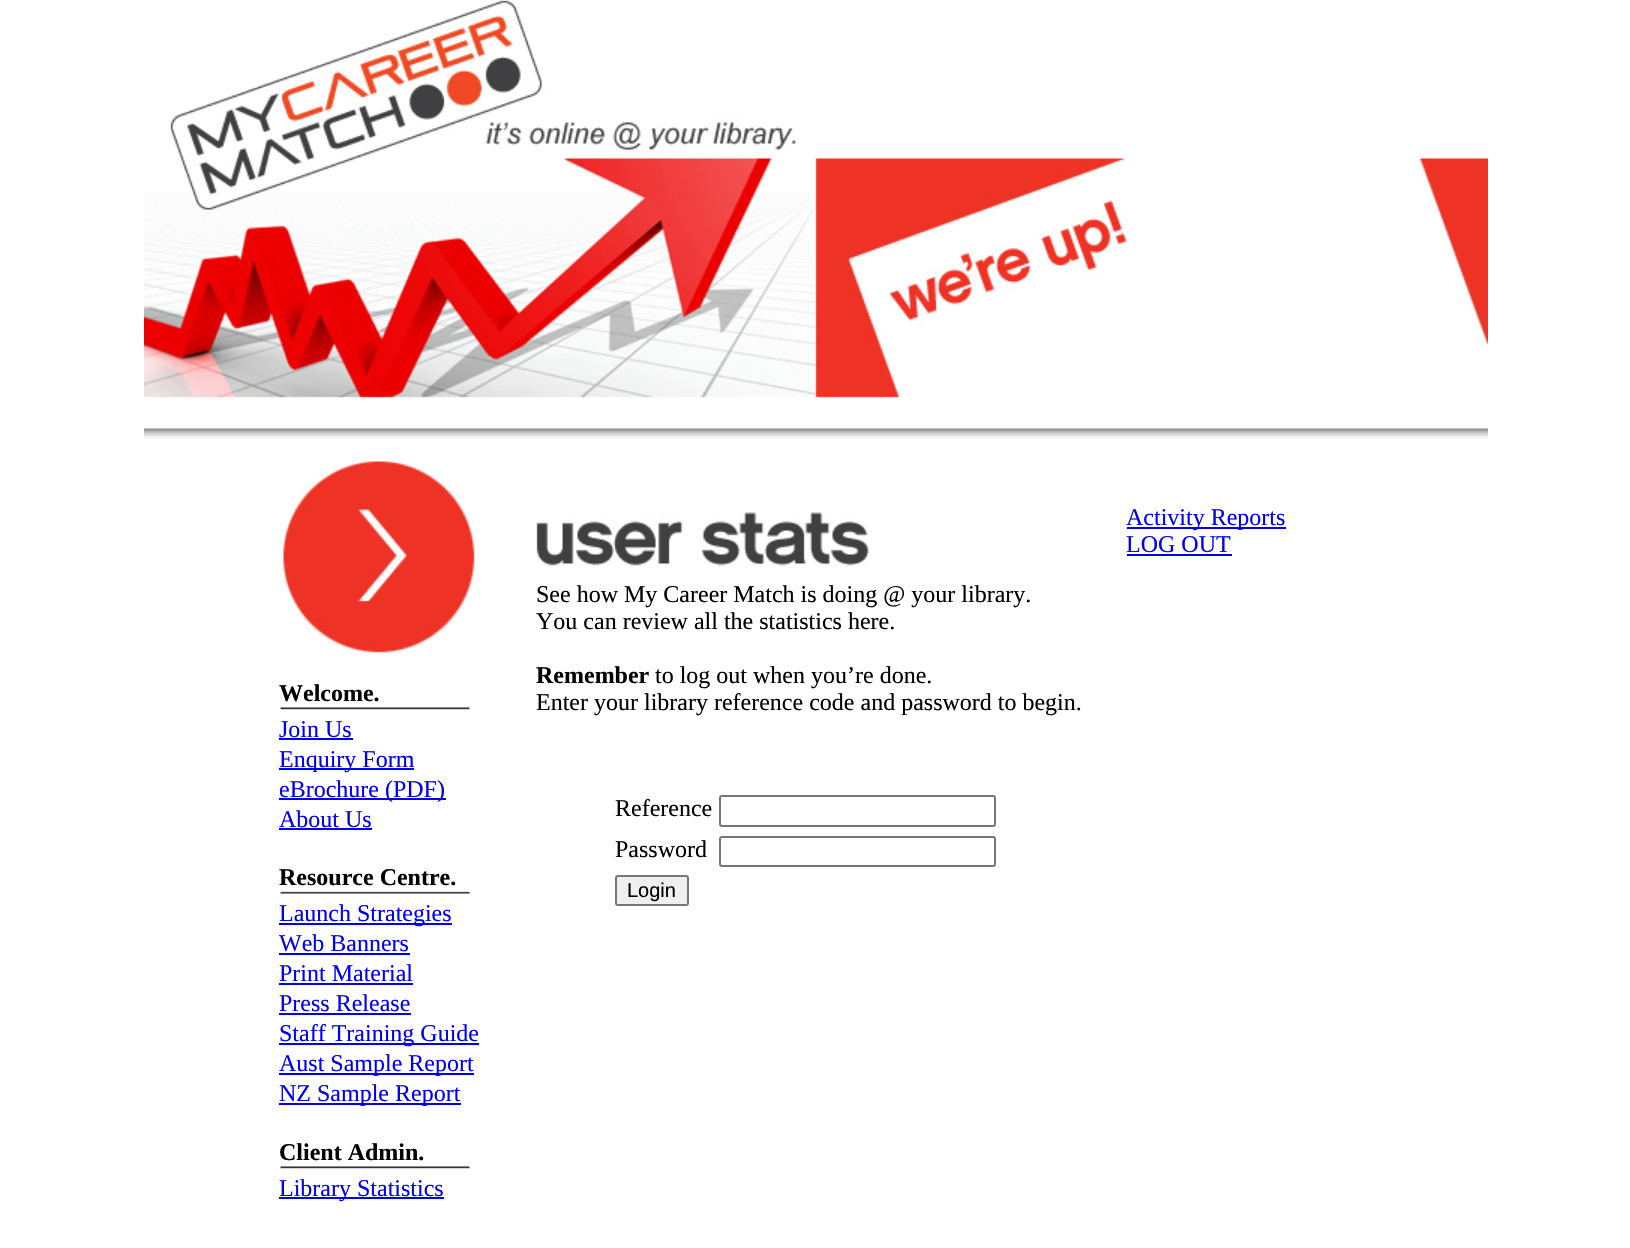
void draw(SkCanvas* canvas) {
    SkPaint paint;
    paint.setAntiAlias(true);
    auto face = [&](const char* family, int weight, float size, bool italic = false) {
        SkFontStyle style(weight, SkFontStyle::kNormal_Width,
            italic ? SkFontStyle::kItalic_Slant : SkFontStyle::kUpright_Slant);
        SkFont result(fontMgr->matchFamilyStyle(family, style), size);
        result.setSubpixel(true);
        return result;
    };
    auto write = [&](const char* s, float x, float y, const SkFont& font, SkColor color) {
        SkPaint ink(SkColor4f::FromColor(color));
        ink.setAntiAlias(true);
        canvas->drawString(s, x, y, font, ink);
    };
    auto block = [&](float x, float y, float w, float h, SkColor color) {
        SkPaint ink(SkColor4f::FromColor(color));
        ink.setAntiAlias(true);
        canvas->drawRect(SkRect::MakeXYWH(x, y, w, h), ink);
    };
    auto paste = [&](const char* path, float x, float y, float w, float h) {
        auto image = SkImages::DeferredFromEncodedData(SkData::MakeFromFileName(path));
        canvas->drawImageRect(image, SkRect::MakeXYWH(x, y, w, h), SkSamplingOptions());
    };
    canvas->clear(SK_ColorWHITE);
    paste("pic1.png", 144, 0, 1344, 439);
    paste("pic2.png", 283, 461, 192, 192);
    auto kFont1 = face("Liberation Serif", 700, 24);
    write("Welcome.", 279, 701, kFont1, SK_ColorBLACK);
    paste("pic3.png", 280, 707, 190, 3);
    auto kFont2 = face("Liberation Serif", 400, 24);
    write("Join Us", 279, 737, kFont2, SkColorSetRGB(0, 0, 238));
    block(279, 738, 74, 2, SkColorSetRGB(0, 0, 238));
    block(279, 768, 135, 2, SkColorSetRGB(0, 0, 238));
    write("Enquiry Form", 279, 767, kFont2, SkColorSetRGB(0, 0, 238));
    block(279, 798, 167, 2, SkColorSetRGB(0, 0, 238));
    write("eBrochure (PDF)", 279, 797, kFont2, SkColorSetRGB(0, 0, 238));
    write("About Us", 279, 827, kFont2, SkColorSetRGB(0, 0, 238));
    block(279, 828, 93, 2, SkColorSetRGB(0, 0, 238));
    write("Resource Centre.", 279, 885, kFont1, SK_ColorBLACK);
    paste("pic4.png", 280, 891, 190, 3);
    block(279, 923, 173, 2, SkColorSetRGB(0, 0, 238));
    write("Launch Strategies", 279, 921, kFont2, SkColorSetRGB(0, 0, 238));
    write("Web Banners", 279, 951, kFont2, SkColorSetRGB(0, 0, 238));
    block(279, 953, 131, 2, SkColorSetRGB(0, 0, 238));
    write("Print Material", 279, 981, kFont2, SkColorSetRGB(0, 0, 238));
    block(279, 983, 134, 2, SkColorSetRGB(0, 0, 238));
    write("Press Release", 279, 1011, kFont2, SkColorSetRGB(0, 0, 238));
    block(279, 1013, 132, 2, SkColorSetRGB(0, 0, 238));
    block(279, 1043, 200, 2, SkColorSetRGB(0, 0, 238));
    write("Staff Training Guide", 279, 1041, kFont2, SkColorSetRGB(0, 0, 238));
    block(279, 1073, 195, 2, SkColorSetRGB(0, 0, 238));
    write("Aust Sample Report", 279, 1071, kFont2, SkColorSetRGB(0, 0, 238));
    block(279, 1103, 182, 2, SkColorSetRGB(0, 0, 238));
    write("NZ Sample Report", 279, 1101, kFont2, SkColorSetRGB(0, 0, 238));
    write("Client Admin.", 279, 1160, kFont1, SK_ColorBLACK);
    paste("pic3.png", 280, 1166, 190, 3);
    block(279, 1197, 165, 2, SkColorSetRGB(0, 0, 238));
    write("Library Statistics", 279, 1196, kFont2, SkColorSetRGB(0, 0, 238));
    block(1127, 527, 159, 2, SkColorSetRGB(0, 0, 238));
    write("Activity Reports", 1126, 525, kFont2, SkColorSetRGB(0, 0, 238));
    write("LOG OUT", 1126, 552, kFont2, SkColorSetRGB(0, 0, 238));
    block(1127, 554, 105, 2, SkColorSetRGB(0, 0, 238));
    paste("pic5.png", 536, 512, 333, 54);
    write("See how My Career Match is doing @ your library.", 536, 602, kFont2, SK_ColorBLACK);
    write("You can review all the statistics here.", 536, 629, kFont2, SK_ColorBLACK);
    write("Remember", 536, 683, kFont1, SK_ColorBLACK);
    write("to log out when you’re done.", 655, 683, kFont2, SK_ColorBLACK);
    write("Enter your library reference code and password to begin.", 536, 710, kFont2, SK_ColorBLACK);
    write("Reference", 615, 816, kFont2, SK_ColorBLACK);
    paint.setStyle(SkPaint::kStroke_Style);
    paint.setStrokeWidth(2);
    paint.setColor(SkColorSetRGB(118, 118, 118));
    canvas->drawRoundRect(SkRect::MakeXYWH(720, 796, 275, 30), 2, 2, paint);
    write("Password", 615, 857, kFont2, SK_ColorBLACK);
    canvas->drawRoundRect(SkRect::MakeXYWH(720, 837, 275, 29), 2, 2, paint);
    paint.setStyle(SkPaint::kFill_Style);
    paint.setColor(SkColorSetRGB(239, 239, 239));
    canvas->drawRoundRect(SkRect::MakeXYWH(616, 876, 72, 29), 2, 2, paint);
    paint.setStyle(SkPaint::kStroke_Style);
    paint.setColor(SkColorSetRGB(118, 118, 118));
    canvas->drawRoundRect(SkRect::MakeXYWH(616, 876, 72, 29), 2, 2, paint);
    auto kFont3 = face("Liberation Sans", 400, 20);
    write("Login", 627, 897, kFont3, SK_ColorBLACK);
}
